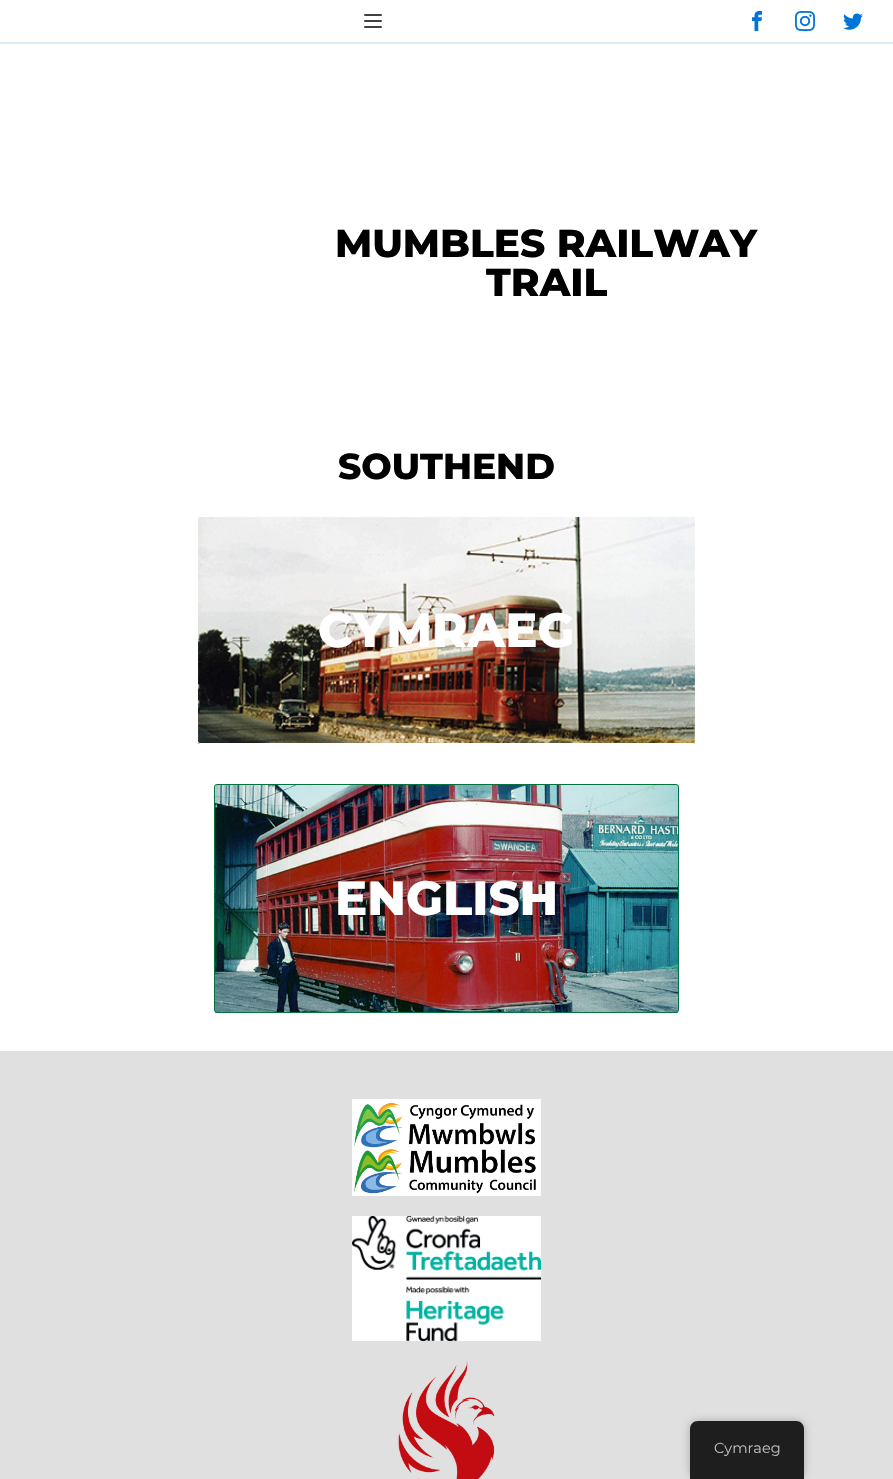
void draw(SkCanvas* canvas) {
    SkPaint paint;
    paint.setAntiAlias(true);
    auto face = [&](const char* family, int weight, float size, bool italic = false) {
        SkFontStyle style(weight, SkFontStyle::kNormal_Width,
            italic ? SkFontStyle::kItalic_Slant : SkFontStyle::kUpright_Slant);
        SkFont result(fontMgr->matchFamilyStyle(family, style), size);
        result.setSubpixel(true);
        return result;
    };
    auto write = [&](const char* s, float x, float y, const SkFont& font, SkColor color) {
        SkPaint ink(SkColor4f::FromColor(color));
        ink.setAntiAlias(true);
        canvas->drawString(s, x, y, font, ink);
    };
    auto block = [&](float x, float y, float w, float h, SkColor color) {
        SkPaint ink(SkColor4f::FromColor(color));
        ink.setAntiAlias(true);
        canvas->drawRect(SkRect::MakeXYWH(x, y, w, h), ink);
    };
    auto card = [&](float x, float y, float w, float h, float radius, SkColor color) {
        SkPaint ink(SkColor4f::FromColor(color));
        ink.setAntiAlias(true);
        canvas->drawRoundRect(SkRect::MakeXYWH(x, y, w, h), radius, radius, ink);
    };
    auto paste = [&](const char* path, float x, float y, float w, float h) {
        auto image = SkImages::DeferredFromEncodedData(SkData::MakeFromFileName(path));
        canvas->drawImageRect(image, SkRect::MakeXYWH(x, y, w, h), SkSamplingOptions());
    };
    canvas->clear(SK_ColorWHITE);
    block(0, 42, 893, 2, SkColorSetRGB(219, 237, 246));
    card(364, 14, 18, 2, 1, SkColorSetRGB(64, 64, 64));
    card(364, 20, 18, 2, 1, SkColorSetRGB(64, 64, 64));
    card(364, 26, 18, 2, 1, SkColorSetRGB(64, 64, 64));
    paste("pic1.png", 752, 11, 10, 20);
    paste("pic2.png", 795, 11, 20, 20);
    paste("pic3.png", 843, 13, 20, 17);
    auto kFont1 = face("Montserrat", 800, 39);
    write("MUMBLES RAILWAY", 335, 257, kFont1, SK_ColorBLACK);
    write("TRAIL", 486, 296, kFont1, SK_ColorBLACK);
    auto kFont2 = face("Montserrat", 800, 36);
    write("SOUTHEND", 338, 479, kFont2, SK_ColorBLACK);
    paste("pic4.png", 198, 516, 497, 228);
    paint.setStyle(SkPaint::kStroke_Style);
    paint.setStrokeWidth(1);
    paint.setColor(SK_ColorWHITE);
    canvas->drawRoundRect(SkRect::MakeXYWH(197.5f, 516.5f, 498, 227), 2.5f, 2.5f, paint);
    auto kFont3 = face("Montserrat", 800, 48);
    write("CYMRAEG", 318, 647, kFont3, SK_ColorWHITE);
    paste("pic5.png", 215, 785, 463, 228);
    paint.setColor(SkColorSetRGB(3, 114, 64));
    canvas->drawRoundRect(SkRect::MakeXYWH(214.5f, 784.5f, 464, 228), 2.5f, 2.5f, paint);
    write("ENGLISH", 335, 915, kFont3, SK_ColorWHITE);
    block(0, 1051, 893, 428, SkColorSetRGB(224, 224, 224));
    paste("pic6.png", 352, 1099, 189, 97);
    paste("pic7.png", 352, 1216, 189, 125);
    paste("pic8.png", 398, 1361, 97, 118);
    paint.setStyle(SkPaint::kFill_Style);
    paint.setColor(SkColorSetARGB(64, 0, 0, 0));
    paint.setMaskFilter(SkMaskFilter::MakeBlur(kNormal_SkBlurStyle, 4));
    canvas->drawRoundRect(SkRect::MakeXYWH(690, 1421, 114, 58), 8, 8, paint);
    paint.setMaskFilter(nullptr);
    paint.setColor(SkColorSetRGB(30, 30, 30));
    canvas->drawPath(SkPathBuilder().moveTo(698, 1421).lineTo(796, 1421).cubicTo(800.5f, 1421, 804, 1424.5f, 804, 1429).lineTo(804, 1479).lineTo(690, 1479).lineTo(690, 1429).cubicTo(690, 1424.5f, 693.5f, 1421, 698, 1421).close().detach(), paint);
    auto kFont4 = face("Montserrat", 400, 14.5f);
    write("Cymraeg", 714, 1453, kFont4, SkColorSetRGB(189, 189, 189));
}
